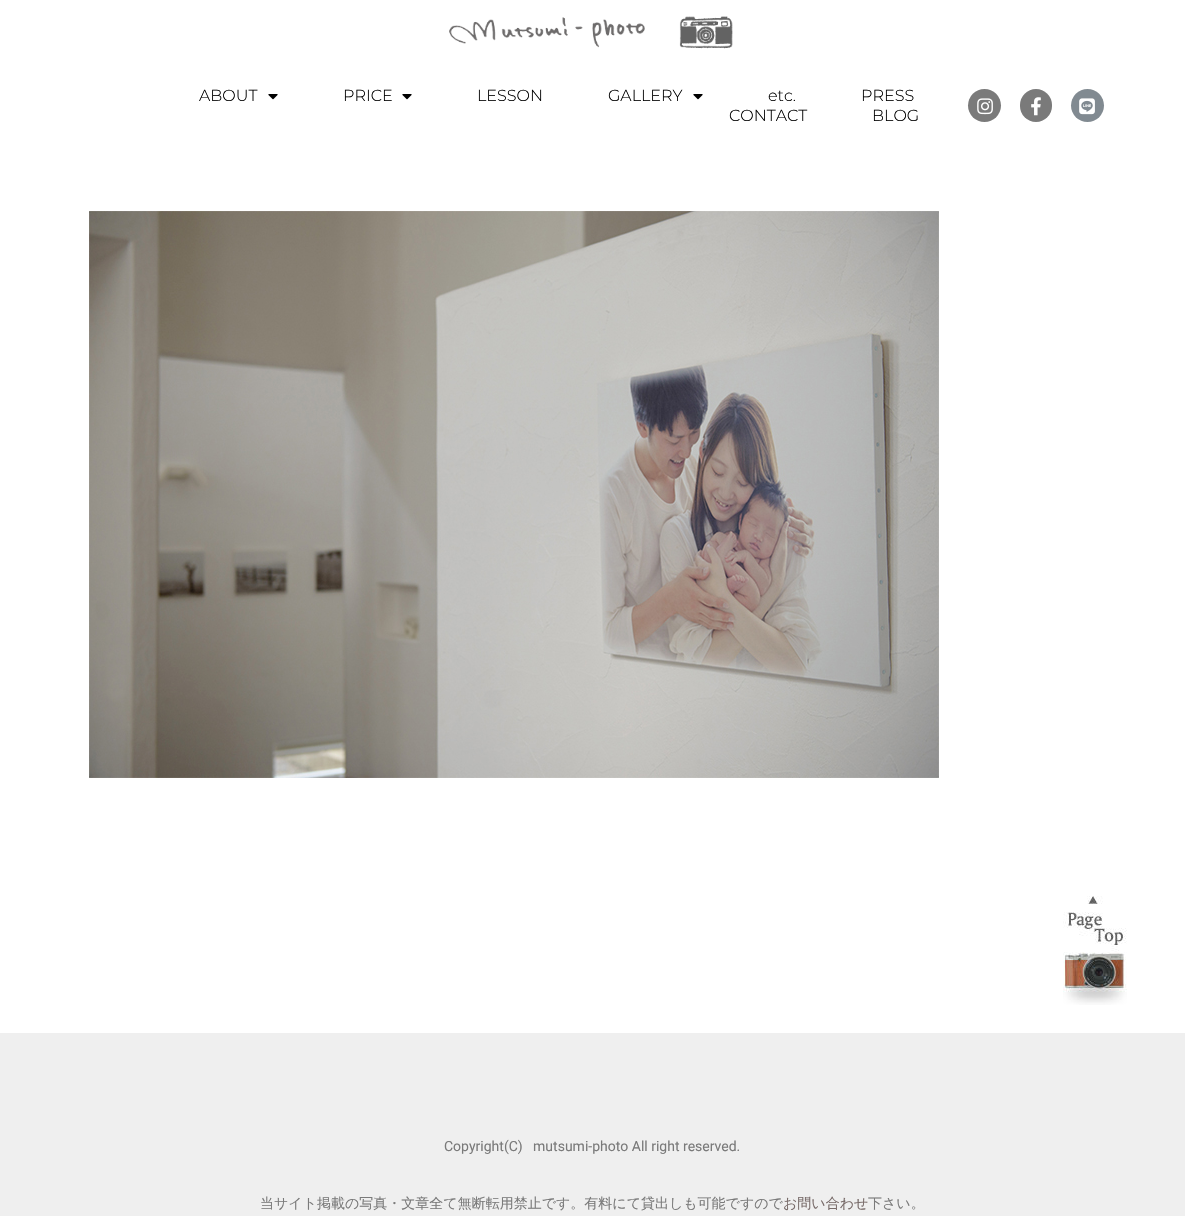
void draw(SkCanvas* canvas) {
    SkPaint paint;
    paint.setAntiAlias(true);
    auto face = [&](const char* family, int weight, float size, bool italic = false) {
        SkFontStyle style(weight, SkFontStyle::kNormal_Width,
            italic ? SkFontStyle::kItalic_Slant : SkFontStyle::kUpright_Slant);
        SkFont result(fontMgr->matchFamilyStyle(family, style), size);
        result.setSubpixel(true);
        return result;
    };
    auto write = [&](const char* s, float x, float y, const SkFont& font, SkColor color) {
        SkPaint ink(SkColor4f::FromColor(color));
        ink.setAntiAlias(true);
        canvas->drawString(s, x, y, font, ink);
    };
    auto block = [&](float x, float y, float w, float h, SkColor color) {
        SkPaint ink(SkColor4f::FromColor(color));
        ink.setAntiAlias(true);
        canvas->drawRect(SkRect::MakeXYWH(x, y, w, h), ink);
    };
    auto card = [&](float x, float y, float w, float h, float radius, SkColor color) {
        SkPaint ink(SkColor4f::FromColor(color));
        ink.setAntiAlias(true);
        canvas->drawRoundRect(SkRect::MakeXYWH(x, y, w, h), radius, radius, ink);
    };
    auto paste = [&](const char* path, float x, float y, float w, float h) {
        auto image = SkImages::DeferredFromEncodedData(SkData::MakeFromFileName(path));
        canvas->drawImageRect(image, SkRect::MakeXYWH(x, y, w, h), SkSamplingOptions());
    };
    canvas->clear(SK_ColorWHITE);
    paste("pic1.png", 449, 16, 284, 33);
    auto kFont1 = face("Montserrat", 300, 16);
    write("ABOUT", 199, 101, kFont1, SK_ColorBLACK);
    paste("pic2.png", 268, 94, 10, 6);
    write("PRICE", 343, 101, kFont1, SK_ColorBLACK);
    paste("pic2.png", 402, 94, 10, 6);
    write("LESSON", 477, 101, kFont1, SK_ColorBLACK);
    write("GALLERY", 608, 101, kFont1, SK_ColorBLACK);
    paste("pic2.png", 693, 94, 10, 6);
    write("etc.", 768, 101, kFont1, SK_ColorBLACK);
    write("PRESS", 861, 101, kFont1, SK_ColorBLACK);
    write("CONTACT", 729, 121, kFont1, SK_ColorBLACK);
    write("BLOG", 872, 121, kFont1, SK_ColorBLACK);
    paint.setColor(SkColorSetRGB(122, 122, 122));
    canvas->drawCircle(984.5f, 105.5f, 16.5f, paint);
    paste("pic3.png", 977, 98, 16, 17);
    card(1020, 89, 32, 33, 16, SkColorSetRGB(122, 122, 122));
    paste("pic4.png", 1031, 97, 10, 19);
    paint.setColor(SkColorSetRGB(129, 138, 145));
    canvas->drawCircle(1087.5f, 105.5f, 16.5f, paint);
    paste("pic5.png", 1079, 98, 16, 17);
    paste("pic6.png", 89, 211, 850, 567);
    paste("pic7.png", 1063, 896, 64, 109);
    block(0, 1033, 1185, 183, SkColorSetRGB(239, 239, 239));
    auto kFont2 = face("Roboto", 400, 14);
    write("Copyright(C)   mutsumi-photo All right reserved.", 444, 1151, kFont2, SkColorSetRGB(122, 122, 122));
    auto kFont3 = face("WenQuanYi Zen Hei", 500, 14);
    write("当サイト掲載の写真・文章全て無断転用禁止です。有料にて貸出しも可能ですので", 260, 1208, kFont3, SkColorSetRGB(122, 122, 122));
    write("お問い合わせ", 783, 1208, kFont3, SkColorSetRGB(120, 107, 105));
    write("下さい。", 868, 1208, kFont3, SkColorSetRGB(122, 122, 122));
}
